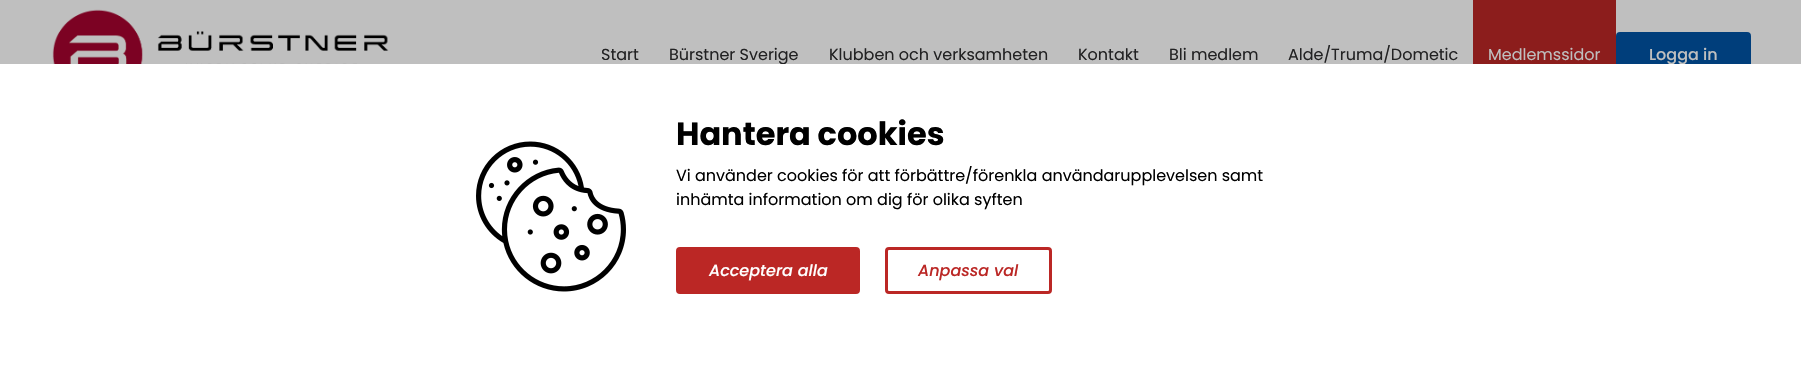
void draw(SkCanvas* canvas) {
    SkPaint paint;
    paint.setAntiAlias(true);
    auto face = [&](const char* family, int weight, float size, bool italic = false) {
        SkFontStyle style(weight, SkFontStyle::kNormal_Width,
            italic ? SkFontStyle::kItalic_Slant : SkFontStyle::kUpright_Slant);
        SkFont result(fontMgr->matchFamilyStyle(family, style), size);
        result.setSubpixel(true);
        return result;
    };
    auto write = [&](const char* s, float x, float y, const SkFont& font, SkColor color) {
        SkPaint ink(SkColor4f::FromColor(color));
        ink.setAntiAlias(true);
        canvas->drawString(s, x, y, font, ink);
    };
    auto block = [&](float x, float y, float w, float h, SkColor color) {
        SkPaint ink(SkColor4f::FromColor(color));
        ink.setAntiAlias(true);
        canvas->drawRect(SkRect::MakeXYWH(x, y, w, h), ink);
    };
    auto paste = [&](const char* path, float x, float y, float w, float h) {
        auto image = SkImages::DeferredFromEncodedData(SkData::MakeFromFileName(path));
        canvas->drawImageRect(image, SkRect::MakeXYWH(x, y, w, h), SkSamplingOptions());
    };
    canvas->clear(SkColorSetRGB(191, 191, 191));
    paste("pic1.png", 52, 9, 337, 55);
    auto kFont1 = face("Poppins", 400, 16);
    write("Start", 601, 60, kFont1, SkColorSetRGB(34, 34, 35));
    write("Bürstner Sverige", 669, 60, kFont1, SkColorSetRGB(34, 34, 35));
    write("Klubben och verksamheten", 829, 60, kFont1, SkColorSetRGB(34, 34, 35));
    write("Kontakt", 1078, 60, kFont1, SkColorSetRGB(34, 34, 35));
    write("Bli medlem", 1169, 60, kFont1, SkColorSetRGB(34, 34, 35));
    write("Alde/Truma/Dometic", 1288, 60, kFont1, SkColorSetRGB(34, 34, 35));
    block(1473, 0, 143, 64, SkColorSetRGB(140, 29, 28));
    write("Medlemssidor", 1488, 60, kFont1, SkColorSetRGB(191, 191, 191));
    paint.setColor(SkColorSetRGB(0, 62, 123));
    canvas->drawRoundRect(SkRect::MakeXYWH(1617.5f, 33.5f, 132, 44), 2.5f, 2.5f, paint);
    paint.setStyle(SkPaint::kStroke_Style);
    paint.setStrokeWidth(3);
    canvas->drawRoundRect(SkRect::MakeXYWH(1617.5f, 33.5f, 132, 44), 2.5f, 2.5f, paint);
    auto kFont2 = face("Poppins", 500, 16);
    write("Logga in", 1649, 60, kFont2, SkColorSetRGB(191, 191, 191));
    block(0, 64, 1801, 305, SK_ColorWHITE);
    paste("pic2.png", 476, 141, 150, 151);
    auto kFont3 = face("Poppins", 700, 32);
    write("Hantera cookies", 676, 145, kFont3, SK_ColorBLACK);
    write("Vi använder cookies för att förbättre/förenkla användarupplevelsen samt", 676, 181, kFont1, SK_ColorBLACK);
    write("inhämta information om dig för olika syften", 676, 205, kFont1, SK_ColorBLACK);
    paint.setStyle(SkPaint::kFill_Style);
    paint.setColor(SkColorSetRGB(187, 39, 37));
    canvas->drawRoundRect(SkRect::MakeXYWH(677.5f, 248.5f, 181, 44), 2.5f, 2.5f, paint);
    paint.setStyle(SkPaint::kStroke_Style);
    canvas->drawRoundRect(SkRect::MakeXYWH(677.5f, 248.5f, 181, 44), 2.5f, 2.5f, paint);
    auto kFont4 = face("Poppins", 500, 16, true);
    write("Acceptera alla", 709, 276, kFont4, SK_ColorWHITE);
    canvas->drawRoundRect(SkRect::MakeXYWH(886.5f, 248.5f, 164, 44), 2.5f, 2.5f, paint);
    write("Anpassa val", 918, 276, kFont4, SkColorSetRGB(187, 39, 37));
}
